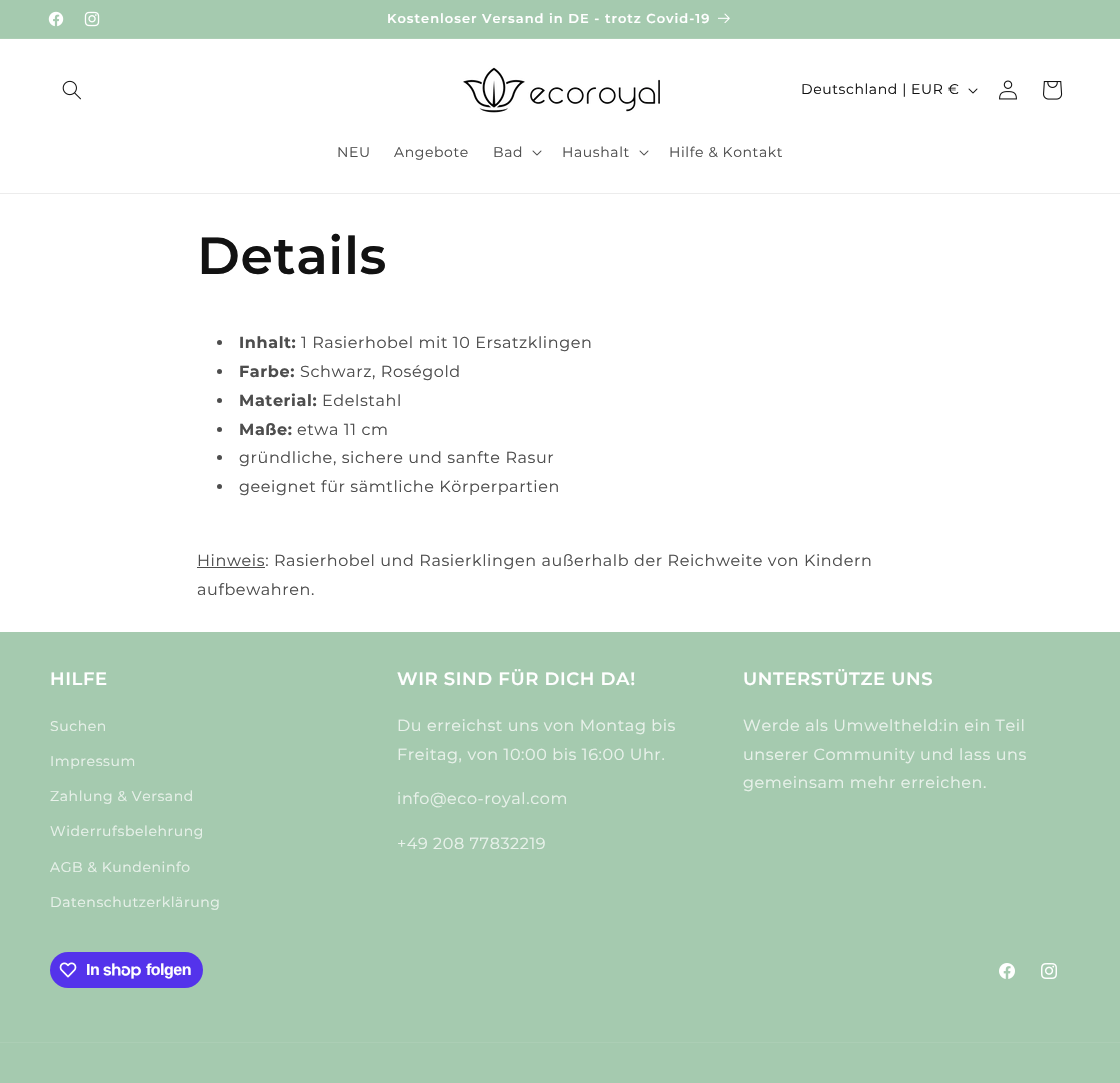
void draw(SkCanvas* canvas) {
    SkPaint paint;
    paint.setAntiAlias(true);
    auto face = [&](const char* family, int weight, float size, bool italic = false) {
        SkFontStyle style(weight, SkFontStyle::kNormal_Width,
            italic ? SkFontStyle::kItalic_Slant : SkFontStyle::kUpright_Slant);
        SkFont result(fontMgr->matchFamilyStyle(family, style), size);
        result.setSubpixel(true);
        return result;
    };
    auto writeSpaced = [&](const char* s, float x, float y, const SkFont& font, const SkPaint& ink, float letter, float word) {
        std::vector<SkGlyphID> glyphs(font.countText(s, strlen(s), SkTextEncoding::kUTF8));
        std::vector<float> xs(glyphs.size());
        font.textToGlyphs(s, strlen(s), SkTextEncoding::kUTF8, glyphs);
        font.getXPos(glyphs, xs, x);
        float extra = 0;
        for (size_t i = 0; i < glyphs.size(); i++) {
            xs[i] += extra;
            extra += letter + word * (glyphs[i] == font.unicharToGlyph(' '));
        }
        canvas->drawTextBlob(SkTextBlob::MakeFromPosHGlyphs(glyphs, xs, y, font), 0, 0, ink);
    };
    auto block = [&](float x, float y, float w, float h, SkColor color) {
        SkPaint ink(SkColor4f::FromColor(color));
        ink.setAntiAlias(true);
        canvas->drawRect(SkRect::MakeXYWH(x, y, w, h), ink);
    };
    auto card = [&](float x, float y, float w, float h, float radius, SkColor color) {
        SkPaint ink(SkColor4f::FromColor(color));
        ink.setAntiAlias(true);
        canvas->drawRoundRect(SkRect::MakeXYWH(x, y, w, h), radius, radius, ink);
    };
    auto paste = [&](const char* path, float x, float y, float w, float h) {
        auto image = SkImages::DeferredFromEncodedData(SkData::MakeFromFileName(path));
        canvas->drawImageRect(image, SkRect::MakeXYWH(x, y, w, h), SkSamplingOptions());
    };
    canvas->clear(SK_ColorWHITE);
    block(0, 0, 1120, 38, SkColorSetRGB(165, 202, 175));
    block(0, 38, 1120, 1, SkColorSetRGB(172, 206, 181));
    paste("pic1.png", 48, 11, 16, 16);
    paste("pic2.png", 84, 11, 16, 16);
    auto kFont1 = face("Montserrat", 600, 13);
    paint.setColor(SK_ColorWHITE);
    writeSpaced("Kostenloser Versand in DE - trotz Covid-19", 387, 23, kFont1, paint, 1, 0);
    paste("pic3.png", 718, 13, 12, 10);
    block(0, 193, 1120, 1, SkColorSetRGB(236, 236, 236));
    paste("pic4.png", 62, 80, 19, 20);
    paste("pic5.png", 463, 67, 197, 46);
    auto kFont2 = face("Montserrat", 400, 14);
    paint.setColor(SkColorSetRGB(18, 18, 18));
    writeSpaced("Deutschland | EUR €", 801, 94, kFont2, paint, 0.6f, 0);
    paste("pic6.png", 968, 88, 10, 6);
    paste("pic7.png", 999, 80, 18, 20);
    paste("pic8.png", 1043, 81, 20, 19);
    paint.setColor(SkColorSetRGB(77, 77, 77));
    writeSpaced("NEU", 337, 157, kFont2, paint, 0.6f, 0);
    writeSpaced("Angebote", 394, 157, kFont2, paint, 0.6f, 0);
    writeSpaced("Bad", 493, 157, kFont2, paint, 0.6f, 0);
    paste("pic9.png", 532, 150, 10, 6);
    writeSpaced("Haushalt", 562, 157, kFont2, paint, 0.6f, 0);
    paste("pic9.png", 639, 150, 10, 6);
    writeSpaced("Hilfe & Kontakt", 669, 157, kFont2, paint, 0.6f, 0);
    auto kFont3 = face("Montserrat", 600, 52);
    paint.setColor(SkColorSetRGB(18, 18, 18));
    writeSpaced("Details", 197, 274, kFont3, paint, 0.6f, 0);
    paint.setColor(SkColorSetRGB(77, 77, 77));
    canvas->drawCircle(219.5f, 342.5f, 2.5f, paint);
    auto kFont4 = face("Montserrat", 700, 16);
    writeSpaced("Inhalt:", 239, 348, kFont4, paint, 0.6f, 0);
    auto kFont5 = face("Montserrat", 400, 16);
    writeSpaced("1 Rasierhobel mit 10 Ersatzklingen", 301, 348, kFont5, paint, 0.6f, 0);
    canvas->drawCircle(219.5f, 371.5f, 2.5f, paint);
    writeSpaced("Farbe:", 239, 377, kFont4, paint, 0.6f, 0);
    writeSpaced("Schwarz, Roségold", 300, 377, kFont5, paint, 0.6f, 0);
    canvas->drawCircle(219.5f, 400.5f, 2.5f, paint);
    writeSpaced("Material:", 239, 406, kFont4, paint, 0.6f, 0);
    writeSpaced("Edelstahl", 322, 406, kFont5, paint, 0.6f, 0);
    canvas->drawCircle(219.5f, 429.5f, 2.5f, paint);
    writeSpaced("Maße:", 239, 435, kFont4, paint, 0.6f, 0);
    writeSpaced("etwa 11 cm", 297, 435, kFont5, paint, 0.6f, 0);
    canvas->drawCircle(219.5f, 457.5f, 2.5f, paint);
    writeSpaced("gründliche, sichere und sanfte Rasur", 239, 463, kFont5, paint, 0.6f, 0);
    canvas->drawCircle(219.5f, 486.5f, 2.5f, paint);
    writeSpaced("geeignet für sämtliche Körperpartien", 239, 492, kFont5, paint, 0.6f, 0);
    block(197, 567, 68, 1, SkColorSetRGB(77, 77, 77));
    writeSpaced("Hinweis: Rasierhobel und Rasierklingen außerhalb der Reichweite von Kindern", 197, 566, kFont5, paint, 0.6f, 0);
    writeSpaced("aufbewahren.", 197, 595, kFont5, paint, 0.6f, 0);
    block(0, 632, 1120, 451, SkColorSetRGB(165, 202, 175));
    auto kFont6 = face("Montserrat", 600, 18);
    paint.setColor(SK_ColorWHITE);
    writeSpaced("HILFE", 50, 685, kFont6, paint, 0.6f, 0);
    paint.setColor(SkColorSetRGB(233, 242, 235));
    writeSpaced("Suchen", 50, 731, kFont2, paint, 0.6f, 0);
    writeSpaced("Impressum", 50, 766, kFont2, paint, 0.6f, 0);
    writeSpaced("Zahlung & Versand", 50, 801, kFont2, paint, 0.6f, 0);
    writeSpaced("Widerrufsbelehrung", 50, 836, kFont2, paint, 0.6f, 0);
    writeSpaced("AGB & Kundeninfo", 50, 872, kFont2, paint, 0.6f, 0);
    writeSpaced("Datenschutzerklärung", 50, 907, kFont2, paint, 0.6f, 0);
    paint.setColor(SK_ColorWHITE);
    writeSpaced("WIR SIND FÜR DICH DA!", 397, 685, kFont6, paint, 0.6f, 0);
    paint.setColor(SkColorSetRGB(233, 242, 235));
    writeSpaced("Du erreichst uns von Montag bis", 397, 731, kFont5, paint, 0.6f, 0);
    writeSpaced("Freitag, von 10:00 bis 16:00 Uhr.", 397, 760, kFont5, paint, 0.6f, 0);
    writeSpaced("info@eco-royal.com", 397, 804, kFont5, paint, 0.6f, 0);
    writeSpaced("+49 208 77832219", 397, 849, kFont5, paint, 0.6f, 0);
    paint.setColor(SK_ColorWHITE);
    writeSpaced("UNTERSTÜTZE UNS", 743, 685, kFont6, paint, 0.6f, 0);
    paint.setColor(SkColorSetRGB(233, 242, 235));
    writeSpaced("Werde als Umweltheld:in ein Teil", 743, 731, kFont5, paint, 0.6f, 0);
    writeSpaced("unserer Community und lass uns", 743, 760, kFont5, paint, 0.6f, 0);
    writeSpaced("gemeinsam mehr erreichen.", 743, 788, kFont5, paint, 0.6f, 0);
    card(50, 952, 153, 36, 18, SkColorSetRGB(84, 51, 235));
    paste("pic10.png", 59, 962, 18, 16);
    auto kFont7 = face("Liberation Sans", 700, 16);
    paint.setColor(SK_ColorWHITE);
    writeSpaced("In", 86, 975, kFont7, paint, -0.5f, 0);
    paste("pic11.png", 103, 963, 38, 16);
    writeSpaced("folgen", 146, 975, kFont7, paint, -0.5f, 0);
    paste("pic12.png", 999, 963, 16, 16);
    paste("pic13.png", 1041, 963, 16, 16);
    block(0, 1042, 1120, 1, SkColorSetRGB(172, 206, 181));
}
